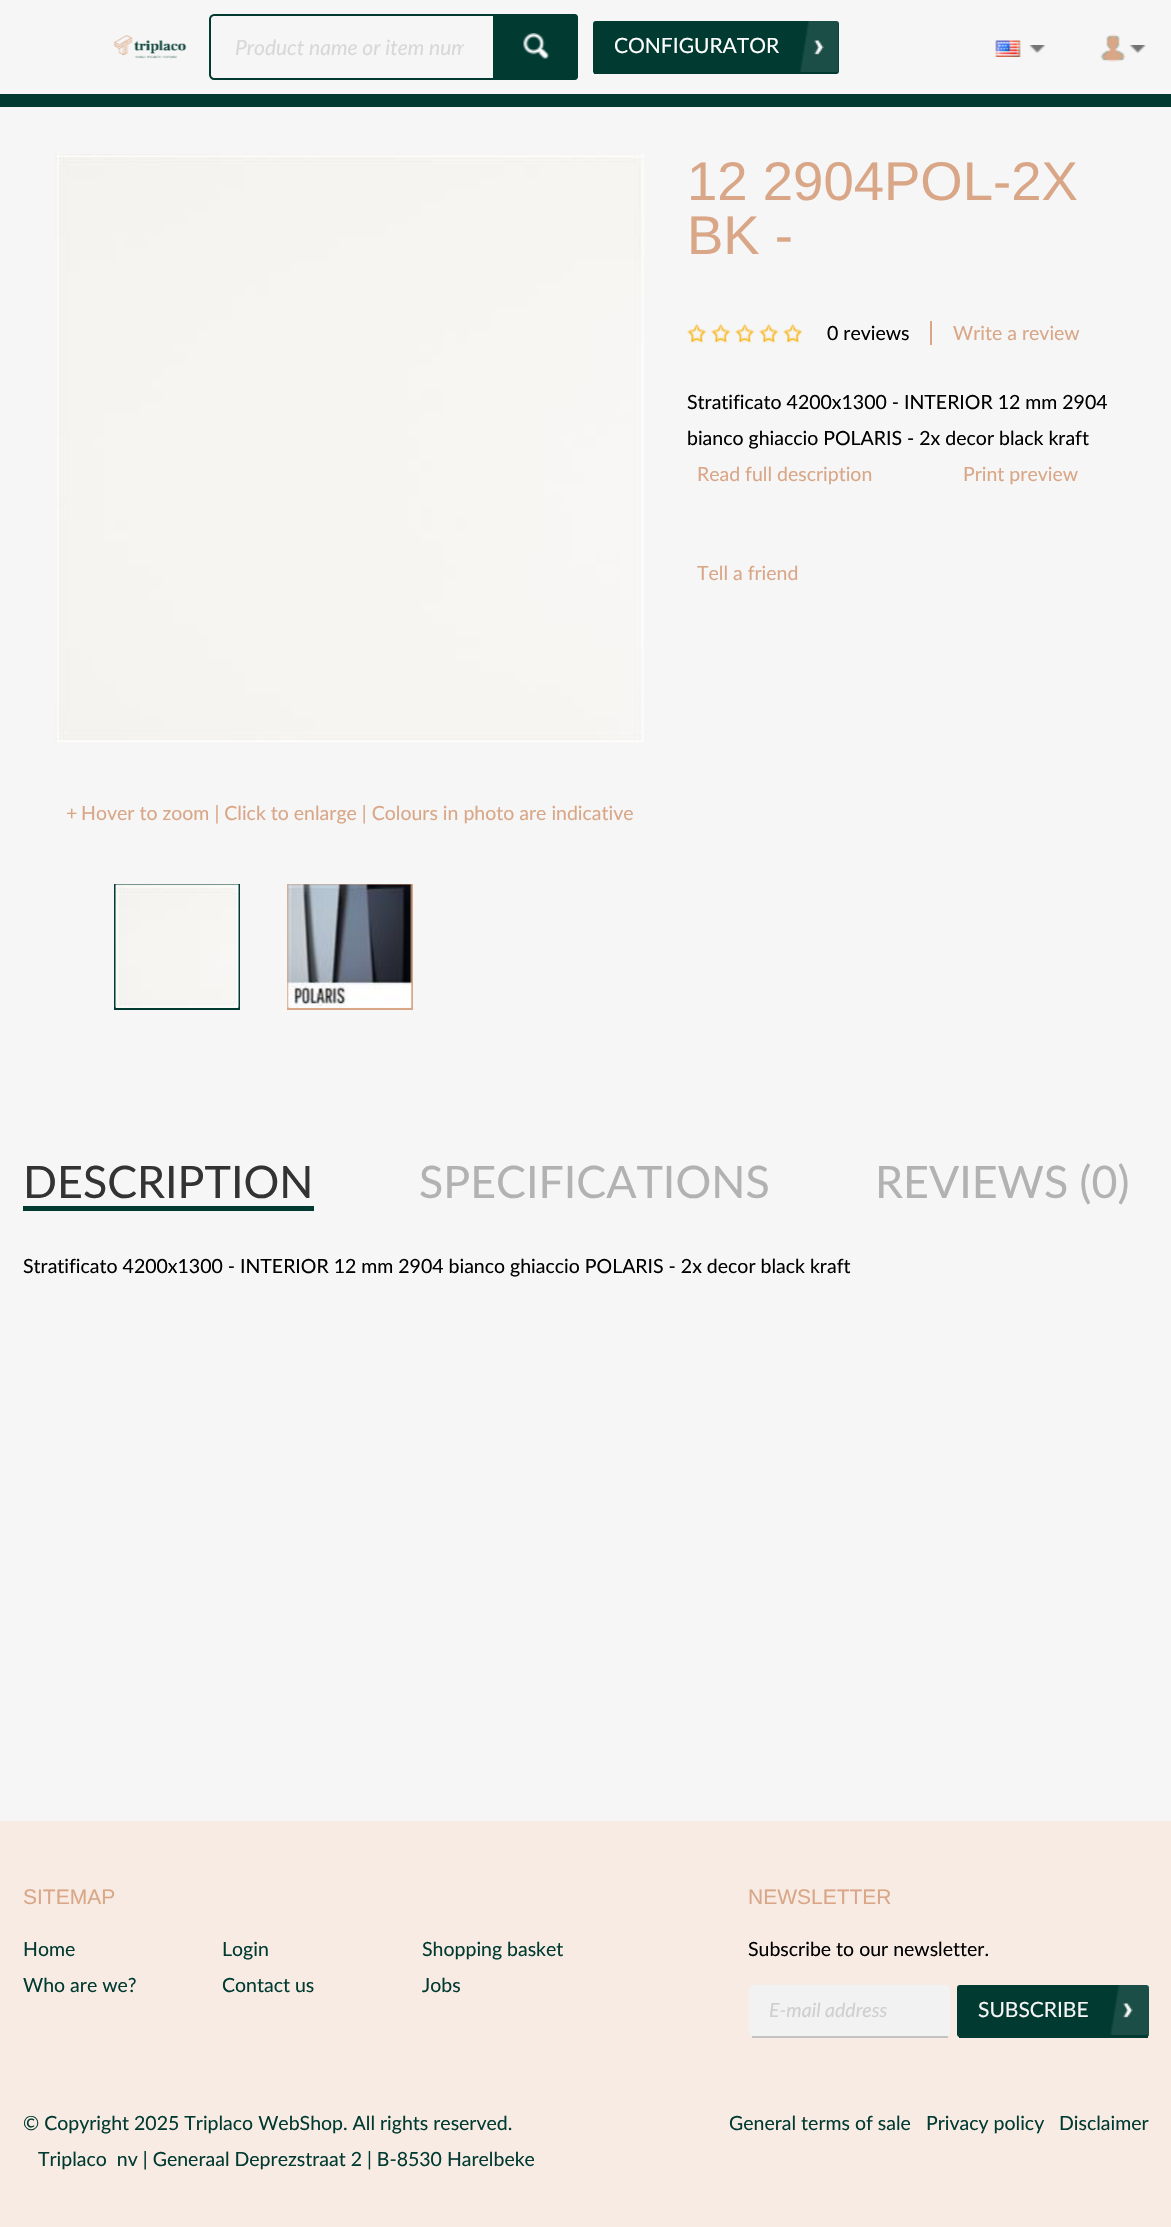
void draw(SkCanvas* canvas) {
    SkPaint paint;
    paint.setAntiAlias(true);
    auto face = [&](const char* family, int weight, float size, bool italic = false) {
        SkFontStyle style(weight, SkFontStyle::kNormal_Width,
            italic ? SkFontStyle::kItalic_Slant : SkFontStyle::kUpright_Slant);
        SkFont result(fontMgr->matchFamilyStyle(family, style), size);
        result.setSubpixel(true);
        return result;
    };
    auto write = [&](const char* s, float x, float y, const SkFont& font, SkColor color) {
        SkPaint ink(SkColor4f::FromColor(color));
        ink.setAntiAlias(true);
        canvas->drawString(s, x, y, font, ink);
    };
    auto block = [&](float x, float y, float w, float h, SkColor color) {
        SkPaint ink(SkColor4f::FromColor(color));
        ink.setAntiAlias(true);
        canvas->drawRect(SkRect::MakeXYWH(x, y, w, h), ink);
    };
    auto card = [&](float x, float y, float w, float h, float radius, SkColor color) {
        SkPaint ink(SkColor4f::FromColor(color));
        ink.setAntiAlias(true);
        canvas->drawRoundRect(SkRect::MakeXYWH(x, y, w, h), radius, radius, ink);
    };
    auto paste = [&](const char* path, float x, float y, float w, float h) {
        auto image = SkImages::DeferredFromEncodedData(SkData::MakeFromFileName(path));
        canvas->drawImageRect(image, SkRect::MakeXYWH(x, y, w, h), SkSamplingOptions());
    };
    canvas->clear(SkColorSetRGB(246, 246, 246));
    paste("pic1.png", 113, 35, 74, 24);
    paint.setStyle(SkPaint::kStroke_Style);
    paint.setStrokeWidth(2);
    paint.setColor(SkColorSetRGB(0, 58, 49));
    canvas->drawPath(SkPathBuilder().moveTo(214, 15).lineTo(494, 15).lineTo(494, 79).lineTo(214, 79).cubicTo(212, 79, 210, 77, 210, 75).lineTo(210, 19).cubicTo(210, 17, 212, 15, 214, 15).close().detach(), paint);
    canvas->save();
    canvas->clipRect(SkRect::MakeXYWH(234, 35, 230, 25));
    auto kFont1 = face("Lato", 400, 21, true);
    write("Product name or item num", 235, 55, kFont1, SkColorSetRGB(216, 216, 216));
    canvas->restore();
    paint.setStyle(SkPaint::kFill_Style);
    canvas->drawPath(SkPathBuilder().moveTo(495, 14).lineTo(575, 14).cubicTo(576.5f, 14, 578, 15.5f, 578, 17).lineTo(578, 77).cubicTo(578, 78.5f, 576.5f, 80, 575, 80).lineTo(495, 80).close().detach(), paint);
    paste("pic2.png", 523, 33, 27, 26);
    card(593, 21, 246, 53, 3, SkColorSetRGB(0, 58, 49));
    block(594, 73, 243, 1, SkColorSetRGB(0, 58, 49));
    auto kFont2 = face("Lato", 400, 21);
    write("CONFIGURATOR", 614, 53, kFont2, SK_ColorWHITE);
    paste("pic3.png", 814, 40, 10, 16);
    paste("pic4.png", 800, 21, 39, 51);
    paste("pic5.png", 995, 40, 26, 17);
    paste("pic6.png", 1028, 45, 18, 8);
    paste("pic7.png", 1100, 34, 26, 28);
    paste("pic8.png", 1129, 45, 17, 8);
    block(0, 94, 1171, 13, SkColorSetRGB(0, 58, 49));
    auto kFont3 = face("Liberation Sans", 400, 54.5f);
    write("12 2904POL-2X", 687, 200, kFont3, SkColorSetRGB(217, 167, 135));
    write("BK -", 687, 254, kFont3, SkColorSetRGB(217, 167, 135));
    paste("pic9.png", 687, 323, 12, 20);
    paste("pic10.png", 699, 326, 8, 17);
    paste("pic11.png", 711, 323, 12, 20);
    paste("pic12.png", 723, 326, 8, 17);
    paste("pic11.png", 735, 323, 12, 20);
    paste("pic12.png", 747, 326, 8, 17);
    paste("pic13.png", 759, 323, 12, 20);
    paste("pic10.png", 771, 326, 8, 17);
    paste("pic9.png", 783, 323, 12, 20);
    paste("pic10.png", 795, 326, 8, 17);
    auto kFont4 = face("Lato", 400, 19.5f);
    write("0 reviews", 827, 340, kFont4, SK_ColorBLACK);
    write("Write a review", 953, 340, kFont4, SkColorSetRGB(217, 167, 135));
    block(930, 321, 2, 24, SkColorSetRGB(217, 167, 135));
    write("Stratificato 4200x1300 - INTERIOR 12 mm 2904", 687, 409, kFont4, SK_ColorBLACK);
    write("bianco ghiaccio POLARIS - 2x decor black kraft", 687, 445, kFont4, SK_ColorBLACK);
    write("Read full description", 697, 481, kFont4, SkColorSetRGB(217, 167, 135));
    write("Print preview", 963, 481, kFont4, SkColorSetRGB(217, 167, 135));
    write("Tell a friend", 697, 580, kFont4, SkColorSetRGB(217, 167, 135));
    paste("pic14.png", 55, 154, 589, 588);
    write("+", 66, 820, kFont4, SkColorSetRGB(217, 167, 135));
    write("Hover to zoom | Click to enlarge | Colours in photo are indicative", 81, 820, kFont4, SkColorSetRGB(217, 167, 135));
    paint.setStyle(SkPaint::kStroke_Style);
    canvas->drawRect(SkRect::MakeXYWH(115, 885, 124, 124), paint);
    paste("pic15.png", 115, 884, 124, 124);
    paint.setColor(SkColorSetRGB(217, 167, 135));
    canvas->drawRect(SkRect::MakeXYWH(288, 885, 124, 124), paint);
    paste("pic16.png", 287, 884, 125, 124);
    auto kFont5 = face("Lato", 400, 44.75f);
    write("DESCRIPTION", 23, 1198, kFont5, SkColorSetRGB(51, 51, 51));
    block(23, 1206, 291, 5, SkColorSetRGB(0, 58, 49));
    write("SPECIFICATIONS", 419, 1198, kFont5, SkColorSetRGB(178, 178, 178));
    write("REVIEWS (0)", 875, 1198, kFont5, SkColorSetRGB(178, 178, 178));
    write("Stratificato 4200x1300 - INTERIOR 12 mm 2904 bianco ghiaccio POLARIS - 2x decor black kraft", 23, 1273, kFont4, SK_ColorBLACK);
    block(0, 1821, 1171, 406, SkColorSetRGB(247, 235, 228));
    auto kFont6 = face("Liberation Sans", 400, 21);
    write("SITEMAP", 23, 1904, kFont6, SkColorSetRGB(217, 167, 135));
    write("Home", 23, 1956, kFont4, SkColorSetRGB(0, 58, 49));
    write("Login", 222, 1956, kFont4, SkColorSetRGB(0, 58, 49));
    write("Shopping basket", 422, 1956, kFont4, SkColorSetRGB(0, 58, 49));
    write("Who are we?", 23, 1992, kFont4, SkColorSetRGB(0, 58, 49));
    write("Contact us", 222, 1992, kFont4, SkColorSetRGB(0, 58, 49));
    write("Jobs", 422, 1992, kFont4, SkColorSetRGB(0, 58, 49));
    write("NEWSLETTER", 748, 1904, kFont6, SkColorSetRGB(217, 167, 135));
    write("Subscribe to our newsletter.", 748, 1956, kFont4, SK_ColorBLACK);
    card(749, 1985, 201, 52, 5, SkColorSetRGB(242, 242, 242));
    block(752, 2036, 196, 2, SkColorSetRGB(194, 194, 194));
    auto kFont7 = face("Lato", 400, 19.5f, true);
    write("E-mail address", 769, 2017, kFont7, SkColorSetRGB(207, 207, 207));
    card(957, 1985, 192, 52, 3, SkColorSetRGB(0, 58, 49));
    block(959, 2036, 189, 2, SkColorSetRGB(0, 58, 49));
    write("SUBSCRIBE", 978, 2017, kFont2, SkColorSetRGB(246, 246, 246));
    paste("pic3.png", 1123, 2003, 10, 16);
    paste("pic17.png", 1110, 1985, 39, 50);
    write("© Copyright 2025 Triplaco WebShop. All rights reserved.", 23, 2130, kFont4, SkColorSetRGB(0, 58, 49));
    write("Triplaco  nv | Generaal Deprezstraat 2 | B-8530 Harelbeke", 38, 2166, kFont4, SkColorSetRGB(0, 58, 49));
    write("General terms of sale", 729, 2130, kFont4, SkColorSetRGB(0, 58, 49));
    write("Privacy policy", 926, 2130, kFont4, SkColorSetRGB(0, 58, 49));
    write("Disclaimer", 1059, 2130, kFont4, SkColorSetRGB(0, 58, 49));
}
